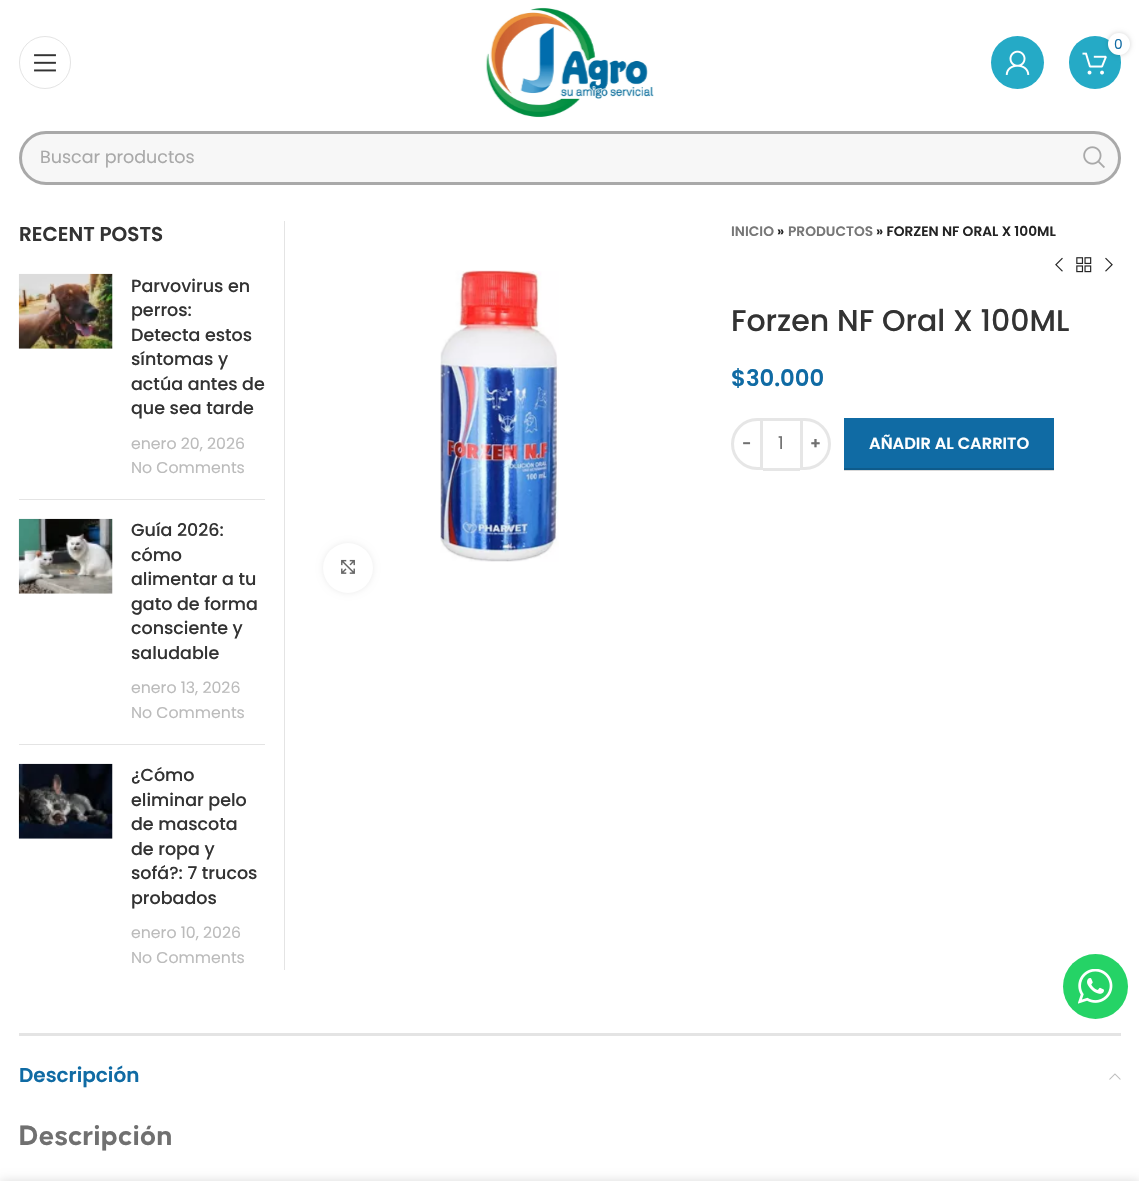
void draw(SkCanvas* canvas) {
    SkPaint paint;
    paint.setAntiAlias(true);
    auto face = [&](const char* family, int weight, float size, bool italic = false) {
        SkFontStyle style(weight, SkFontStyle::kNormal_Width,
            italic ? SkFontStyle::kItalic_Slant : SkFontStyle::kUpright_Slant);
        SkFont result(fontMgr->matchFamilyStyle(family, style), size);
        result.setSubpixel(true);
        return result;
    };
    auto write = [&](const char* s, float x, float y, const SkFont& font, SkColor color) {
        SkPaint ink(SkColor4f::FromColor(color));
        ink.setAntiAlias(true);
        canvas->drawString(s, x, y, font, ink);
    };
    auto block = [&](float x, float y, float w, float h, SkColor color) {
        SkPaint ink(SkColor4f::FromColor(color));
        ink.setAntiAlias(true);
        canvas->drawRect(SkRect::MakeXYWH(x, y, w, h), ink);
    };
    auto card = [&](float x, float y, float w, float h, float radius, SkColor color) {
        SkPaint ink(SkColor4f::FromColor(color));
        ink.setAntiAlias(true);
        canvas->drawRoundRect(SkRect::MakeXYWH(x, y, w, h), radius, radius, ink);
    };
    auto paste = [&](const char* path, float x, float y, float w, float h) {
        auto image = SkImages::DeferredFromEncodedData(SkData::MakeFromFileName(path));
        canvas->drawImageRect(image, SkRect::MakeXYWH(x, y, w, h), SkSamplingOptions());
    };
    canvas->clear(SK_ColorWHITE);
    block(844, 470, 210, 1, SkColorSetRGB(217, 217, 217));
    paint.setStyle(SkPaint::kStroke_Style);
    paint.setStrokeWidth(1);
    paint.setColor(SkColorSetRGB(228, 228, 228));
    canvas->drawRoundRect(SkRect::MakeXYWH(19.5f, 36.5f, 51, 52), 25.5f, 25.5f, paint);
    paste("pic1.png", 34, 54, 22, 18);
    paste("pic2.png", 485, 7, 169, 111);
    paint.setStyle(SkPaint::kFill_Style);
    paint.setColor(SkColorSetRGB(37, 170, 198));
    canvas->drawCircle(1017.5f, 62.5f, 26.5f, paint);
    paste("pic3.png", 1005, 50, 25, 25);
    card(1069, 36, 52, 53, 26, SkColorSetRGB(37, 170, 198));
    paste("pic4.png", 1082, 52, 25, 23);
    paint.setColor(SkColorSetARGB(43, 0, 0, 0));
    paint.setMaskFilter(SkMaskFilter::MakeBlur(kNormal_SkBlurStyle, 2.5f));
    canvas->drawRoundRect(SkRect::MakeXYWH(1108, 33, 22, 22), 11, 11, paint);
    paint.setMaskFilter(nullptr);
    paint.setColor(SK_ColorWHITE);
    canvas->drawCircle(1119, 44, 11, paint);
    auto kFont1 = face("Poppins", 400, 13.75f);
    write("0", 1114, 49, kFont1, SkColorSetRGB(16, 107, 164));
    paint.setColor(SkColorSetRGB(247, 247, 247));
    canvas->drawRoundRect(SkRect::MakeXYWH(20.5f, 132.5f, 1099, 51), 25.5f, 25.5f, paint);
    paint.setStyle(SkPaint::kStroke_Style);
    paint.setStrokeWidth(3);
    paint.setColor(SkColorSetRGB(169, 169, 169));
    canvas->drawRoundRect(SkRect::MakeXYWH(20.5f, 132.5f, 1099, 51), 25.5f, 25.5f, paint);
    auto kFont2 = face("Poppins", 400, 17.5f);
    write("Buscar productos", 40, 163, kFont2, SkColorSetRGB(169, 169, 169));
    paste("pic5.png", 1083, 146, 22, 22);
    block(284, 221, 1, 749, SkColorSetRGB(228, 228, 228));
    auto kFont3 = face("Poppins", 600, 20);
    write("RECENT POSTS", 19, 241, kFont3, SkColorSetRGB(51, 51, 51));
    block(19, 499, 246, 1, SkColorSetRGB(228, 228, 228));
    paste("pic6.png", 18, 273, 95, 76);
    auto kFont4 = face("Poppins", 500, 17.5f);
    write("Parvovirus en", 131, 292, kFont4, SkColorSetRGB(51, 51, 51));
    write("perros:", 131, 316, kFont4, SkColorSetRGB(51, 51, 51));
    write("Detecta estos", 131, 341, kFont4, SkColorSetRGB(51, 51, 51));
    write("síntomas y", 131, 365, kFont4, SkColorSetRGB(51, 51, 51));
    write("actúa antes de", 131, 390, kFont4, SkColorSetRGB(51, 51, 51));
    write("que sea tarde", 131, 414, kFont4, SkColorSetRGB(51, 51, 51));
    auto kFont5 = face("Poppins", 400, 15.75f);
    write("enero 20, 2026", 131, 449, kFont5, SkColorSetRGB(187, 187, 187));
    write("No Comments", 131, 473, kFont5, SkColorSetRGB(187, 187, 187));
    block(19, 744, 246, 1, SkColorSetRGB(228, 228, 228));
    paste("pic7.png", 18, 518, 95, 76);
    write("Guía 2026:", 131, 536, kFont4, SkColorSetRGB(51, 51, 51));
    write("cómo", 131, 561, kFont4, SkColorSetRGB(51, 51, 51));
    write("alimentar a tu", 131, 585, kFont4, SkColorSetRGB(51, 51, 51));
    write("gato de forma", 131, 610, kFont4, SkColorSetRGB(51, 51, 51));
    write("consciente y", 131, 634, kFont4, SkColorSetRGB(51, 51, 51));
    write("saludable", 131, 659, kFont4, SkColorSetRGB(51, 51, 51));
    write("enero 13, 2026", 131, 693, kFont5, SkColorSetRGB(187, 187, 187));
    write("No Comments", 131, 718, kFont5, SkColorSetRGB(187, 187, 187));
    paste("pic8.png", 18, 763, 95, 76);
    write("¿Cómo", 131, 781, kFont4, SkColorSetRGB(51, 51, 51));
    write("eliminar pelo", 131, 806, kFont4, SkColorSetRGB(51, 51, 51));
    write("de mascota", 131, 830, kFont4, SkColorSetRGB(51, 51, 51));
    write("de ropa y", 131, 855, kFont4, SkColorSetRGB(51, 51, 51));
    write("sofá?: 7 trucos", 131, 879, kFont4, SkColorSetRGB(51, 51, 51));
    write("probados", 131, 904, kFont4, SkColorSetRGB(51, 51, 51));
    write("enero 10, 2026", 131, 938, kFont5, SkColorSetRGB(187, 187, 187));
    write("No Comments", 131, 963, kFont5, SkColorSetRGB(187, 187, 187));
    paint.setStyle(SkPaint::kFill_Style);
    paint.setColor(SkColorSetARGB(20, 0, 0, 0));
    paint.setMaskFilter(SkMaskFilter::MakeBlur(kNormal_SkBlurStyle, 3));
    canvas->drawRoundRect(SkRect::MakeXYWH(323, 543, 50, 50), 25, 25, paint);
    paint.setMaskFilter(nullptr);
    paint.setColor(SK_ColorWHITE);
    canvas->drawCircle(348, 568, 25, paint);
    paste("pic9.png", 341, 559, 14, 15);
    paste("pic10.png", 440, 270, 119, 292);
    auto kFont6 = face("Poppins", 600, 13.75f);
    write("INICIO", 731, 236, kFont6, SkColorSetRGB(119, 119, 119));
    write("»", 777, 236, kFont6, SkColorSetRGB(36, 36, 36));
    write("PRODUCTOS", 788, 236, kFont6, SkColorSetRGB(119, 119, 119));
    write("» FORZEN NF ORAL X 100ML", 876, 236, kFont6, SkColorSetRGB(36, 36, 36));
    paste("pic11.png", 1055, 257, 8, 15);
    paste("pic12.png", 1076, 257, 16, 16);
    paste("pic13.png", 1105, 257, 8, 15);
    auto kFont7 = face("Poppins", 500, 30);
    write("Forzen NF Oral X 100ML", 731, 331, kFont7, SkColorSetRGB(51, 51, 51));
    auto kFont8 = face("Poppins", 600, 22.75f);
    write("$30.000", 731, 386, kFont8, SkColorSetRGB(16, 107, 164));
    paint.setStyle(SkPaint::kStroke_Style);
    paint.setColor(SkColorSetRGB(230, 230, 230));
    canvas->drawPath(SkPathBuilder().moveTo(757, 419.5f).lineTo(761.5f, 419.5f).lineTo(761.5f, 468.5f).lineTo(757, 468.5f).cubicTo(743.5f, 468.5f, 732.5f, 457.5f, 732.5f, 444).cubicTo(732.5f, 430.5f, 743.5f, 419.5f, 757, 419.5f).close().detach(), paint);
    auto kFont9 = face("Poppins", 600, 16.25f);
    write("-", 742, 449, kFont9, SkColorSetRGB(112, 112, 112));
    block(763, 418, 37, 3, SkColorSetRGB(230, 230, 230));
    block(763, 468, 37, 3, SkColorSetRGB(230, 230, 230));
    write("1", 778, 449, kFont2, SkColorSetRGB(112, 112, 112));
    canvas->drawPath(SkPathBuilder().moveTo(801.5f, 419.5f).lineTo(805, 419.5f).cubicTo(818.5f, 419.5f, 829.5f, 430.5f, 829.5f, 444).cubicTo(829.5f, 457.5f, 818.5f, 468.5f, 805, 468.5f).lineTo(801.5f, 468.5f).close().detach(), paint);
    write("+", 810, 449, kFont9, SkColorSetRGB(112, 112, 112));
    block(844, 418, 210, 50, SkColorSetRGB(16, 107, 164));
    block(844, 468, 210, 2, SkColorSetRGB(14, 91, 139));
    write("AÑADIR AL CARRITO", 869, 449, kFont9, SK_ColorWHITE);
    block(19, 1033, 1102, 3, SkColorSetRGB(228, 228, 228));
    write("Descripción", 19, 1082, kFont3, SkColorSetRGB(16, 107, 164));
    paste("pic14.png", 1109, 1073, 12, 7);
    auto kFont10 = face("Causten", 700, 30);
    write("Descripción", 19, 1145, kFont10, SkColorSetRGB(112, 112, 112));
    paint.setStyle(SkPaint::kFill_Style);
    paint.setColor(SkColorSetRGB(37, 211, 102));
    canvas->drawCircle(1095.5f, 986.5f, 32.5f, paint);
    paste("pic15.png", 1078, 969, 35, 35);
    paint.setColor(SkColorSetARGB(36, 0, 0, 0));
    paint.setMaskFilter(SkMaskFilter::MakeBlur(kNormal_SkBlurStyle, 5.5f));
    canvas->drawRect(SkRect::MakeXYWH(0, 1181, 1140, 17), paint);
    paint.setMaskFilter(nullptr);
}
